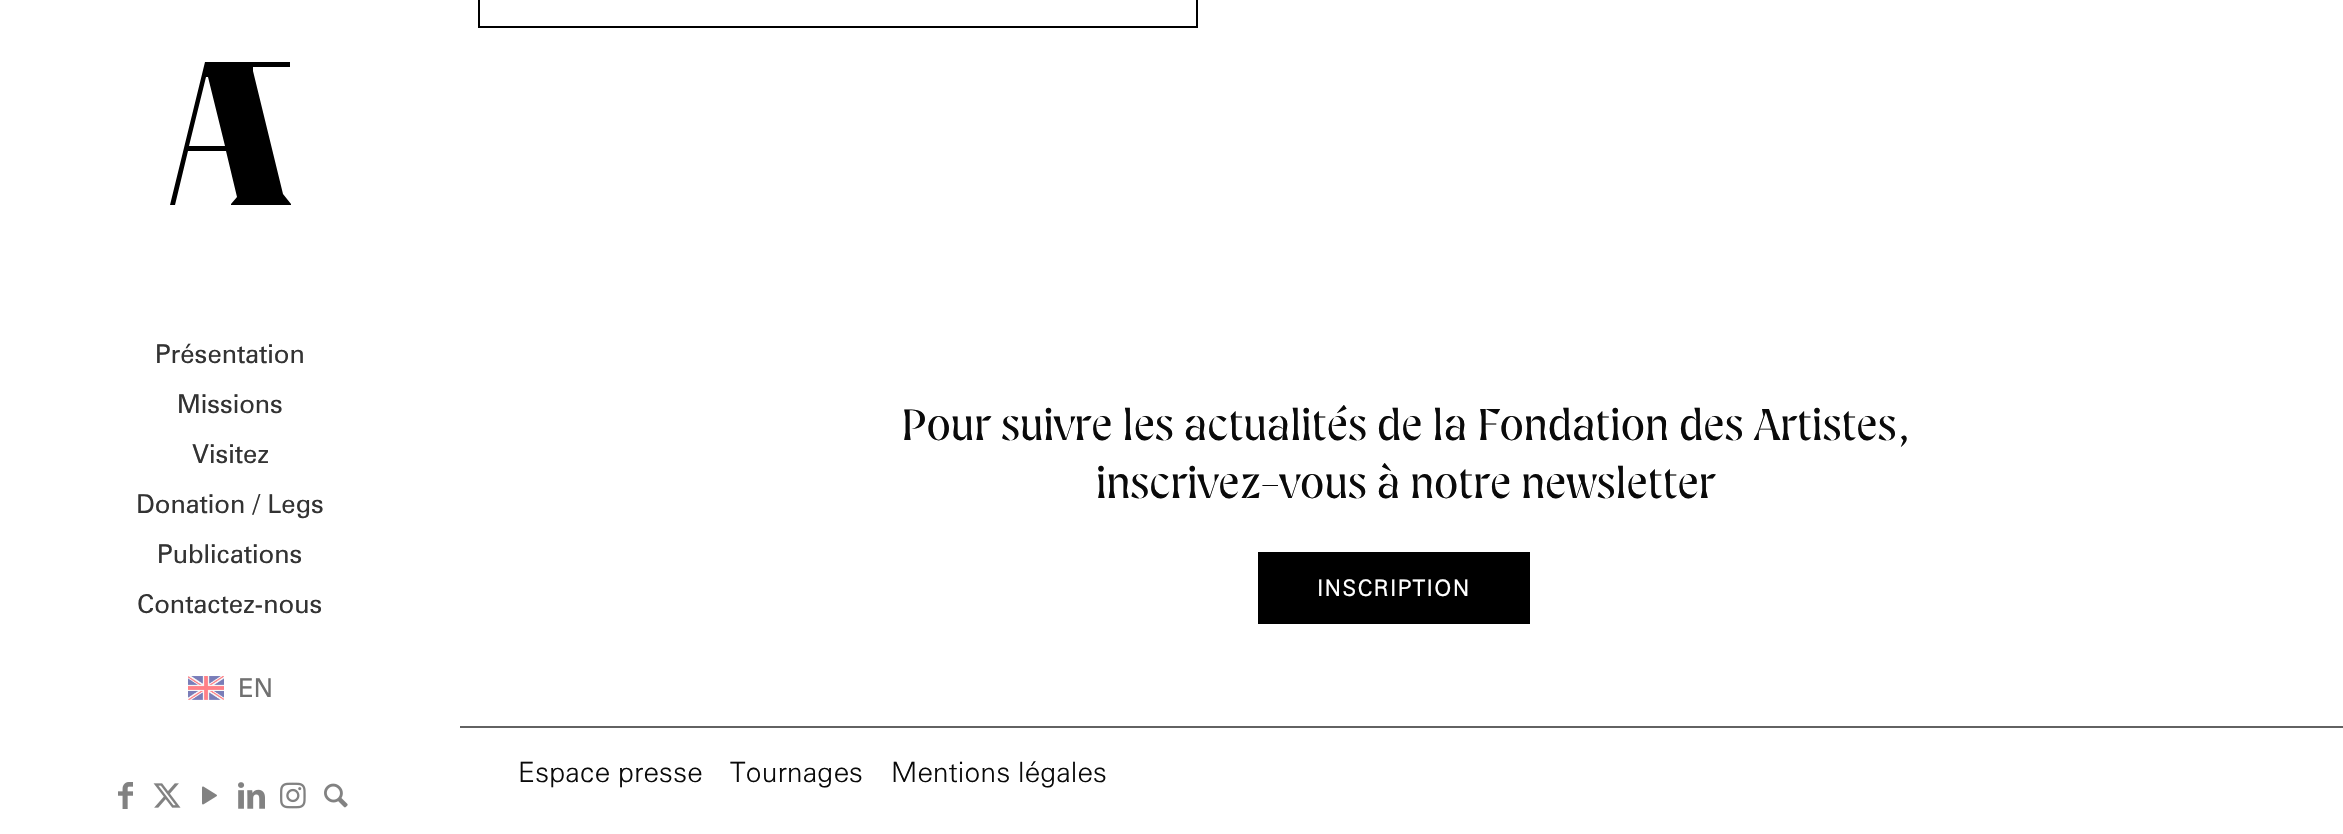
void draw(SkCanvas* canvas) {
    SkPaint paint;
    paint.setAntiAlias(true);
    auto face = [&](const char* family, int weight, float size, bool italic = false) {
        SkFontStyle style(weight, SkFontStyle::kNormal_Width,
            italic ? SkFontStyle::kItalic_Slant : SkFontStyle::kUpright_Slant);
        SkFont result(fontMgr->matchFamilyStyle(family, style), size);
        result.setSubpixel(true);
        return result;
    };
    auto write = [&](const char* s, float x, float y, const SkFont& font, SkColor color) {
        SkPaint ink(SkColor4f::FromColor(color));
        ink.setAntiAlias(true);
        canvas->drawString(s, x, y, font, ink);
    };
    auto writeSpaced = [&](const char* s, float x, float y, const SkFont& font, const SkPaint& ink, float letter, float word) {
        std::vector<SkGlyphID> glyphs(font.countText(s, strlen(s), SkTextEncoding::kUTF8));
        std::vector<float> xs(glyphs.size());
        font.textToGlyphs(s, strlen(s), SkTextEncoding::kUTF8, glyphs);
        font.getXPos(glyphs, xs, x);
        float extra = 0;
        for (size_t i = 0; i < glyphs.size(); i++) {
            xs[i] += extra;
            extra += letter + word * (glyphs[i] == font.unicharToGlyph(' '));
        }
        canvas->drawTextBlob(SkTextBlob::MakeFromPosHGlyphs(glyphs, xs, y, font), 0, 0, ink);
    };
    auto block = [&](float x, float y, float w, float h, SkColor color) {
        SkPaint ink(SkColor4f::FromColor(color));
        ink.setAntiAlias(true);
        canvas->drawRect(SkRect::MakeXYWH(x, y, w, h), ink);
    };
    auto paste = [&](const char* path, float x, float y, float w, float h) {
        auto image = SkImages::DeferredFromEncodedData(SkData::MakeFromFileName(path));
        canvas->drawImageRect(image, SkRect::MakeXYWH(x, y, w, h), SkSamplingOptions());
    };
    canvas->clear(SK_ColorWHITE);
    paint.setColor(SK_ColorBLACK);
    canvas->drawPath(SkPathBuilder().moveTo(206, 77).lineTo(208, 77).lineTo(225, 146).lineTo(189, 146).close().moveTo(205, 62).lineTo(170, 205).lineTo(175, 205).lineTo(188, 151).lineTo(226, 151).lineTo(237, 197).lineTo(231, 204).lineTo(231, 205).lineTo(291, 205).lineTo(291, 204).lineTo(283, 194).lineTo(253, 71).lineTo(253, 67).lineTo(290, 67).lineTo(290, 62).close().detach(), paint);
    auto kFont1 = face("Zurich", 400, 26);
    write("Présentation", 155, 363, kFont1, SkColorSetRGB(51, 51, 51));
    write("Missions", 177, 413, kFont1, SkColorSetRGB(51, 51, 51));
    write("Visitez", 192, 463, kFont1, SkColorSetRGB(51, 51, 51));
    write("Donation / Legs", 136, 513, kFont1, SkColorSetRGB(51, 51, 51));
    write("Publications", 157, 563, kFont1, SkColorSetRGB(51, 51, 51));
    write("Contactez-nous", 137, 613, kFont1, SkColorSetRGB(51, 51, 51));
    paste("pic1.png", 188, 676, 36, 24);
    write("EN", 238, 697, kFont1, SkColorSetRGB(112, 112, 112));
    paste("pic2.png", 118, 782, 15, 27);
    paste("pic3.png", 153, 783, 28, 25);
    paste("pic4.png", 202, 786, 15, 19);
    paste("pic5.png", 238, 782, 27, 27);
    paste("pic6.png", 280, 782, 26, 27);
    paste("pic7.png", 324, 783, 24, 25);
    paint.setStyle(SkPaint::kStroke_Style);
    paint.setStrokeWidth(2);
    canvas->drawRect(SkRect::MakeXYWH(479, -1, 718, 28), paint);
    auto kFont2 = face("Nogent", 300, 42);
    write("Pour suivre les actualités de la Fondation des Artistes,", 901, 440, kFont2, SkColorSetRGB(10, 10, 10));
    write("inscrivez-vous à notre newsletter", 1096, 498, kFont2, SkColorSetRGB(10, 10, 10));
    block(1258, 552, 272, 72, SK_ColorBLACK);
    auto kFont3 = face("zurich", 700, 22);
    paint.setStyle(SkPaint::kFill_Style);
    paint.setColor(SK_ColorWHITE);
    writeSpaced("INSCRIPTION", 1317, 596, kFont3, paint, 1.75f, 0);
    block(460, 726, 1883, 2, SkColorSetRGB(98, 98, 98));
    auto kFont4 = face("Zurich", 300, 28);
    write("Espace presse", 518, 782, kFont4, SkColorSetRGB(10, 10, 10));
    write("Tournages", 730, 782, kFont4, SkColorSetRGB(10, 10, 10));
    write("Mentions légales", 891, 782, kFont4, SkColorSetRGB(10, 10, 10));
}
